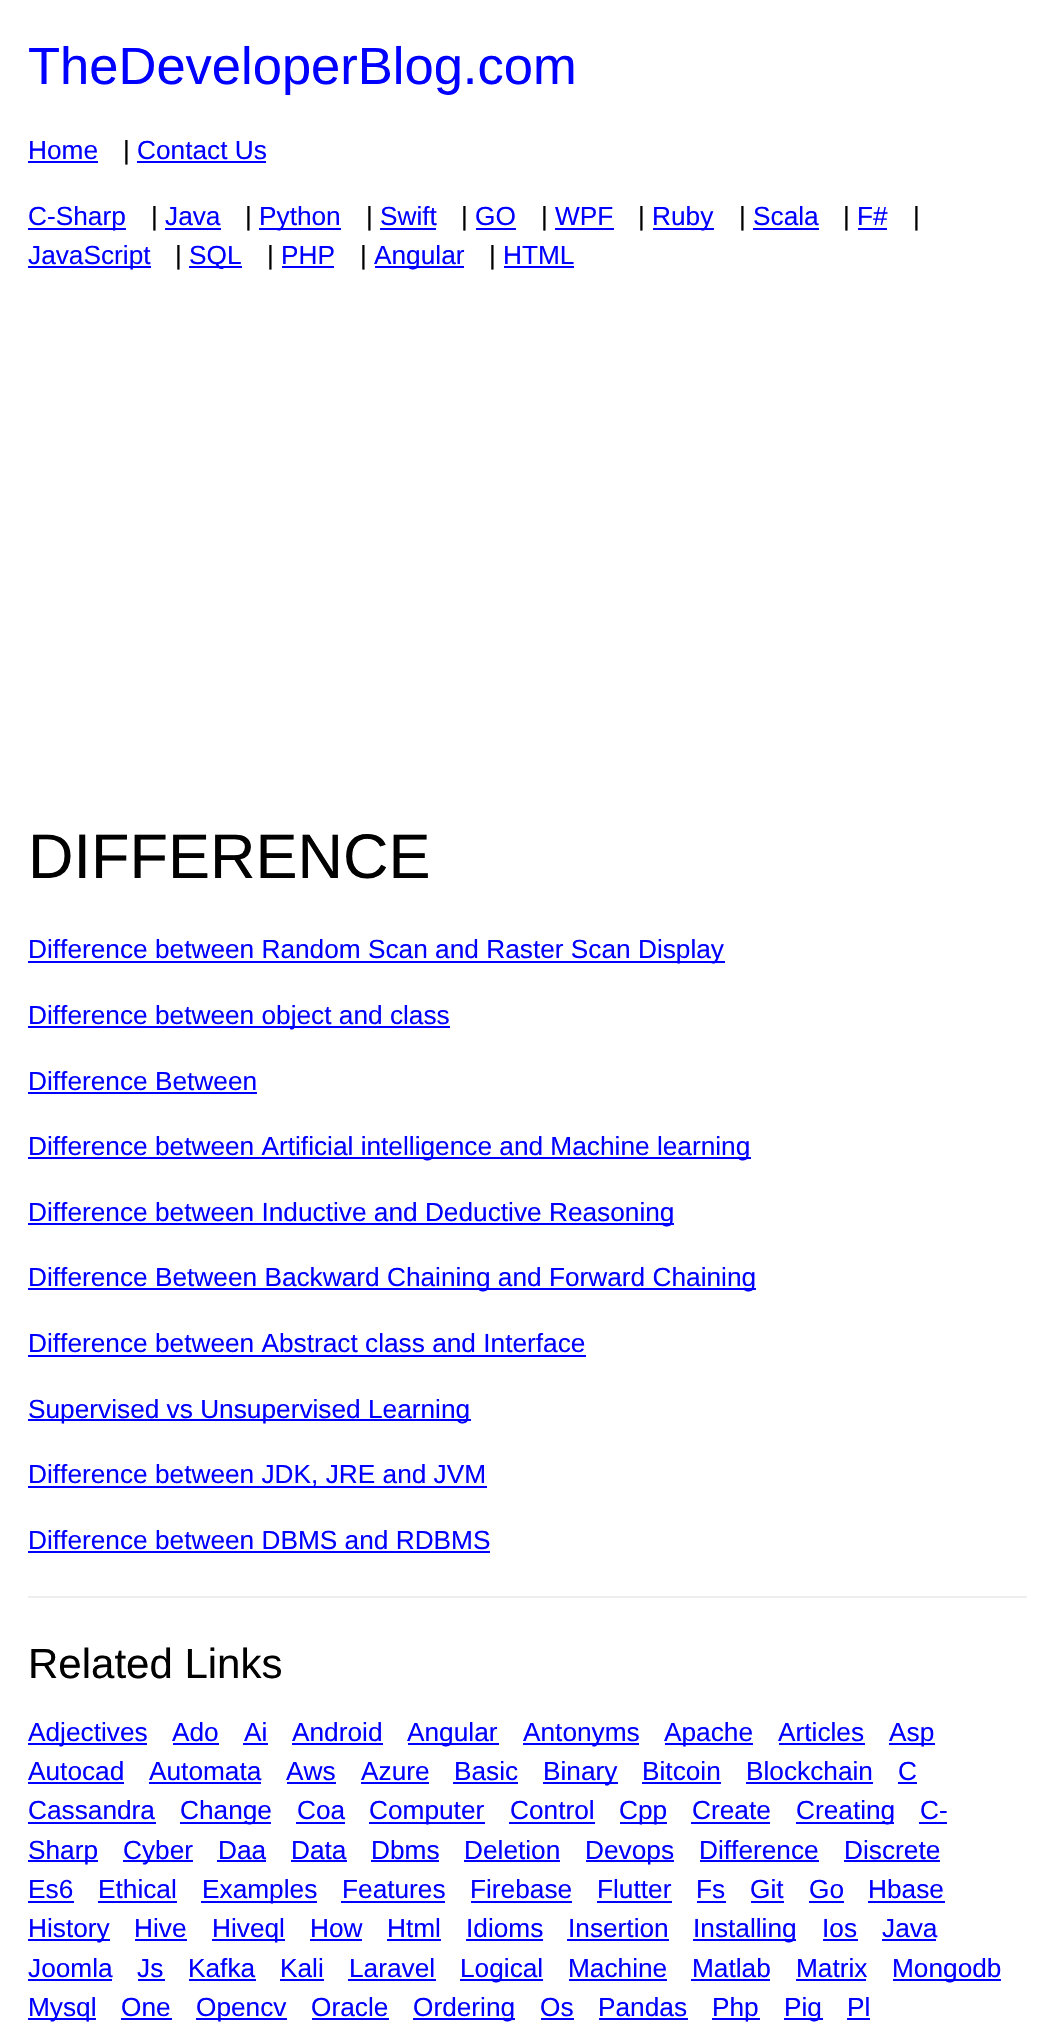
void draw(SkCanvas* canvas) {
    SkPaint paint;
    paint.setAntiAlias(true);
    auto face = [&](const char* family, int weight, float size, bool italic = false) {
        SkFontStyle style(weight, SkFontStyle::kNormal_Width,
            italic ? SkFontStyle::kItalic_Slant : SkFontStyle::kUpright_Slant);
        SkFont result(fontMgr->matchFamilyStyle(family, style), size);
        result.setSubpixel(true);
        return result;
    };
    auto write = [&](const char* s, float x, float y, const SkFont& font, SkColor color) {
        SkPaint ink(SkColor4f::FromColor(color));
        ink.setAntiAlias(true);
        canvas->drawString(s, x, y, font, ink);
    };
    auto block = [&](float x, float y, float w, float h, SkColor color) {
        SkPaint ink(SkColor4f::FromColor(color));
        ink.setAntiAlias(true);
        canvas->drawRect(SkRect::MakeXYWH(x, y, w, h), ink);
    };
    canvas->clear(SK_ColorWHITE);
    auto kFont1 = face("Liberation Sans", 400, 52.5f);
    write("TheDeveloperBlog.com", 28, 84, kFont1, SkColorSetRGB(0, 0, 255));
    auto kFont2 = face("Liberation Sans", 400, 26.25f);
    write("Home", 28, 159, kFont2, SkColorSetRGB(0, 0, 255));
    block(28, 161, 70, 2, SkColorSetRGB(0, 0, 255));
    write("|", 123, 159, kFont2, SK_ColorBLACK);
    write("Contact Us", 137, 159, kFont2, SkColorSetRGB(0, 0, 255));
    block(137, 161, 129, 2, SkColorSetRGB(0, 0, 255));
    block(28, 228, 98, 2, SkColorSetRGB(0, 0, 255));
    write("C-Sharp", 28, 225, kFont2, SkColorSetRGB(0, 0, 255));
    write("|", 151, 225, kFont2, SK_ColorBLACK);
    write("Java", 165, 225, kFont2, SkColorSetRGB(0, 0, 255));
    block(165, 228, 56, 2, SkColorSetRGB(0, 0, 255));
    write("|", 245, 225, kFont2, SK_ColorBLACK);
    block(259, 228, 82, 2, SkColorSetRGB(0, 0, 255));
    write("Python", 259, 225, kFont2, SkColorSetRGB(0, 0, 255));
    write("|", 366, 225, kFont2, SK_ColorBLACK);
    write("Swift", 380, 225, kFont2, SkColorSetRGB(0, 0, 255));
    block(380, 228, 56, 2, SkColorSetRGB(0, 0, 255));
    write("|", 461, 225, kFont2, SK_ColorBLACK);
    write("GO", 475, 225, kFont2, SkColorSetRGB(0, 0, 255));
    block(476, 228, 40, 2, SkColorSetRGB(0, 0, 255));
    write("|", 541, 225, kFont2, SK_ColorBLACK);
    write("WPF", 555, 225, kFont2, SkColorSetRGB(0, 0, 255));
    block(555, 228, 59, 2, SkColorSetRGB(0, 0, 255));
    write("|", 638, 225, kFont2, SK_ColorBLACK);
    block(653, 228, 61, 2, SkColorSetRGB(0, 0, 255));
    write("Ruby", 652, 225, kFont2, SkColorSetRGB(0, 0, 255));
    write("|", 739, 225, kFont2, SK_ColorBLACK);
    write("Scala", 753, 225, kFont2, SkColorSetRGB(0, 0, 255));
    block(753, 228, 66, 2, SkColorSetRGB(0, 0, 255));
    write("|", 843, 225, kFont2, SK_ColorBLACK);
    write("F#", 857, 225, kFont2, SkColorSetRGB(0, 0, 255));
    block(858, 228, 29, 2, SkColorSetRGB(0, 0, 255));
    write("|", 913, 225, kFont2, SK_ColorBLACK);
    block(28, 266, 123, 2, SkColorSetRGB(0, 0, 255));
    write("JavaScript", 28, 264, kFont2, SkColorSetRGB(0, 0, 255));
    write("|", 175, 264, kFont2, SK_ColorBLACK);
    block(189, 266, 53, 2, SkColorSetRGB(0, 0, 255));
    write("SQL", 189, 264, kFont2, SkColorSetRGB(0, 0, 255));
    write("|", 267, 264, kFont2, SK_ColorBLACK);
    write("PHP", 281, 264, kFont2, SkColorSetRGB(0, 0, 255));
    block(282, 266, 52, 2, SkColorSetRGB(0, 0, 255));
    write("|", 360, 264, kFont2, SK_ColorBLACK);
    block(375, 266, 89, 2, SkColorSetRGB(0, 0, 255));
    write("Angular", 374, 264, kFont2, SkColorSetRGB(0, 0, 255));
    write("|", 489, 264, kFont2, SK_ColorBLACK);
    write("HTML", 503, 264, kFont2, SkColorSetRGB(0, 0, 255));
    block(504, 266, 70, 2, SkColorSetRGB(0, 0, 255));
    auto kFont3 = face("Liberation Sans", 400, 63);
    write("DIFFERENCE", 28, 878, kFont3, SK_ColorBLACK);
    block(28, 961, 697, 2, SkColorSetRGB(0, 0, 255));
    write("Difference between Random Scan and Raster Scan Display", 28, 958, kFont2, SkColorSetRGB(0, 0, 255));
    block(28, 1026, 422, 2, SkColorSetRGB(0, 0, 255));
    write("Difference between object and class", 28, 1024, kFont2, SkColorSetRGB(0, 0, 255));
    write("Difference Between", 28, 1090, kFont2, SkColorSetRGB(0, 0, 255));
    block(28, 1092, 229, 2, SkColorSetRGB(0, 0, 255));
    block(28, 1157, 723, 2, SkColorSetRGB(0, 0, 255));
    write("Difference between Artificial intelligence and Machine learning", 28, 1155, kFont2, SkColorSetRGB(0, 0, 255));
    block(28, 1223, 646, 2, SkColorSetRGB(0, 0, 255));
    write("Difference between Inductive and Deductive Reasoning", 28, 1221, kFont2, SkColorSetRGB(0, 0, 255));
    block(28, 1288, 728, 2, SkColorSetRGB(0, 0, 255));
    write("Difference Between Backward Chaining and Forward Chaining", 28, 1286, kFont2, SkColorSetRGB(0, 0, 255));
    write("Difference between Abstract class and Interface", 28, 1352, kFont2, SkColorSetRGB(0, 0, 255));
    block(28, 1355, 558, 2, SkColorSetRGB(0, 0, 255));
    block(28, 1419, 443, 2, SkColorSetRGB(0, 0, 255));
    write("Supervised vs Unsupervised Learning", 28, 1418, kFont2, SkColorSetRGB(0, 0, 255));
    block(28, 1486, 459, 2, SkColorSetRGB(0, 0, 255));
    write("Difference between JDK, JRE and JVM", 28, 1483, kFont2, SkColorSetRGB(0, 0, 255));
    write("Difference between DBMS and RDBMS", 28, 1549, kFont2, SkColorSetRGB(0, 0, 255));
    block(28, 1551, 462, 2, SkColorSetRGB(0, 0, 255));
    block(28, 1596, 999, 2, SkColorSetRGB(238, 238, 238));
    auto kFont4 = face("Liberation Sans", 400, 42);
    write("Related Links", 28, 1678, kFont4, SK_ColorBLACK);
    block(28, 1743, 119, 2, SkColorSetRGB(0, 0, 255));
    write("Adjectives", 28, 1741, kFont2, SkColorSetRGB(0, 0, 255));
    write("Ado", 172, 1741, kFont2, SkColorSetRGB(0, 0, 255));
    block(173, 1743, 46, 2, SkColorSetRGB(0, 0, 255));
    write("Ai", 244, 1741, kFont2, SkColorSetRGB(0, 0, 255));
    block(243, 1743, 25, 2, SkColorSetRGB(0, 0, 255));
    write("Android", 292, 1741, kFont2, SkColorSetRGB(0, 0, 255));
    block(292, 1743, 91, 2, SkColorSetRGB(0, 0, 255));
    block(408, 1743, 91, 2, SkColorSetRGB(0, 0, 255));
    write("Angular", 407, 1741, kFont2, SkColorSetRGB(0, 0, 255));
    block(523, 1743, 116, 2, SkColorSetRGB(0, 0, 255));
    write("Antonyms", 523, 1741, kFont2, SkColorSetRGB(0, 0, 255));
    block(665, 1743, 88, 2, SkColorSetRGB(0, 0, 255));
    write("Apache", 664, 1741, kFont2, SkColorSetRGB(0, 0, 255));
    write("Articles", 778, 1741, kFont2, SkColorSetRGB(0, 0, 255));
    block(779, 1743, 86, 2, SkColorSetRGB(0, 0, 255));
    block(889, 1743, 46, 2, SkColorSetRGB(0, 0, 255));
    write("Asp", 889, 1741, kFont2, SkColorSetRGB(0, 0, 255));
    write("Autocad", 28, 1780, kFont2, SkColorSetRGB(0, 0, 255));
    block(28, 1782, 96, 2, SkColorSetRGB(0, 0, 255));
    write("Automata", 149, 1780, kFont2, SkColorSetRGB(0, 0, 255));
    block(149, 1782, 112, 2, SkColorSetRGB(0, 0, 255));
    write("Aws", 286, 1780, kFont2, SkColorSetRGB(0, 0, 255));
    block(287, 1782, 49, 2, SkColorSetRGB(0, 0, 255));
    write("Azure", 361, 1780, kFont2, SkColorSetRGB(0, 0, 255));
    block(361, 1782, 68, 2, SkColorSetRGB(0, 0, 255));
    write("Basic", 454, 1780, kFont2, SkColorSetRGB(0, 0, 255));
    block(453, 1782, 65, 2, SkColorSetRGB(0, 0, 255));
    block(543, 1782, 75, 2, SkColorSetRGB(0, 0, 255));
    write("Binary", 543, 1780, kFont2, SkColorSetRGB(0, 0, 255));
    write("Bitcoin", 642, 1780, kFont2, SkColorSetRGB(0, 0, 255));
    block(642, 1782, 79, 2, SkColorSetRGB(0, 0, 255));
    write("Blockchain", 746, 1780, kFont2, SkColorSetRGB(0, 0, 255));
    block(746, 1782, 127, 2, SkColorSetRGB(0, 0, 255));
    write("C", 898, 1780, kFont2, SkColorSetRGB(0, 0, 255));
    block(898, 1782, 19, 2, SkColorSetRGB(0, 0, 255));
    write("Cassandra", 28, 1819, kFont2, SkColorSetRGB(0, 0, 255));
    block(28, 1822, 128, 2, SkColorSetRGB(0, 0, 255));
    block(180, 1822, 91, 2, SkColorSetRGB(0, 0, 255));
    write("Change", 180, 1819, kFont2, SkColorSetRGB(0, 0, 255));
    write("Coa", 297, 1819, kFont2, SkColorSetRGB(0, 0, 255));
    block(296, 1822, 49, 2, SkColorSetRGB(0, 0, 255));
    block(369, 1822, 116, 2, SkColorSetRGB(0, 0, 255));
    write("Computer", 369, 1819, kFont2, SkColorSetRGB(0, 0, 255));
    write("Control", 510, 1819, kFont2, SkColorSetRGB(0, 0, 255));
    block(509, 1822, 86, 2, SkColorSetRGB(0, 0, 255));
    block(620, 1822, 47, 2, SkColorSetRGB(0, 0, 255));
    write("Cpp", 619, 1819, kFont2, SkColorSetRGB(0, 0, 255));
    write("Create", 692, 1819, kFont2, SkColorSetRGB(0, 0, 255));
    block(691, 1822, 79, 2, SkColorSetRGB(0, 0, 255));
    block(796, 1822, 98, 2, SkColorSetRGB(0, 0, 255));
    write("Creating", 796, 1819, kFont2, SkColorSetRGB(0, 0, 255));
    write("C-", 920, 1819, kFont2, SkColorSetRGB(0, 0, 255));
    block(919, 1822, 28, 2, SkColorSetRGB(0, 0, 255));
    block(28, 1860, 70, 2, SkColorSetRGB(0, 0, 255));
    write("Sharp", 28, 1859, kFont2, SkColorSetRGB(0, 0, 255));
    block(123, 1860, 70, 2, SkColorSetRGB(0, 0, 255));
    write("Cyber", 123, 1859, kFont2, SkColorSetRGB(0, 0, 255));
    write("Daa", 218, 1859, kFont2, SkColorSetRGB(0, 0, 255));
    block(217, 1860, 49, 2, SkColorSetRGB(0, 0, 255));
    write("Data", 291, 1859, kFont2, SkColorSetRGB(0, 0, 255));
    block(291, 1860, 56, 2, SkColorSetRGB(0, 0, 255));
    write("Dbms", 371, 1859, kFont2, SkColorSetRGB(0, 0, 255));
    block(371, 1860, 68, 2, SkColorSetRGB(0, 0, 255));
    write("Deletion", 464, 1859, kFont2, SkColorSetRGB(0, 0, 255));
    block(464, 1860, 96, 2, SkColorSetRGB(0, 0, 255));
    block(586, 1860, 88, 2, SkColorSetRGB(0, 0, 255));
    write("Devops", 585, 1859, kFont2, SkColorSetRGB(0, 0, 255));
    write("Difference", 699, 1859, kFont2, SkColorSetRGB(0, 0, 255));
    block(700, 1860, 119, 2, SkColorSetRGB(0, 0, 255));
    write("Discrete", 844, 1859, kFont2, SkColorSetRGB(0, 0, 255));
    block(844, 1860, 96, 2, SkColorSetRGB(0, 0, 255));
    write("Es6", 28, 1898, kFont2, SkColorSetRGB(0, 0, 255));
    block(28, 1901, 46, 2, SkColorSetRGB(0, 0, 255));
    write("Ethical", 98, 1898, kFont2, SkColorSetRGB(0, 0, 255));
    block(98, 1901, 79, 2, SkColorSetRGB(0, 0, 255));
    block(201, 1901, 116, 2, SkColorSetRGB(0, 0, 255));
    write("Examples", 202, 1898, kFont2, SkColorSetRGB(0, 0, 255));
    write("Features", 342, 1898, kFont2, SkColorSetRGB(0, 0, 255));
    block(341, 1901, 104, 2, SkColorSetRGB(0, 0, 255));
    write("Firebase", 470, 1898, kFont2, SkColorSetRGB(0, 0, 255));
    block(471, 1901, 101, 2, SkColorSetRGB(0, 0, 255));
    write("Flutter", 597, 1898, kFont2, SkColorSetRGB(0, 0, 255));
    block(597, 1901, 75, 2, SkColorSetRGB(0, 0, 255));
    write("Fs", 696, 1898, kFont2, SkColorSetRGB(0, 0, 255));
    block(697, 1901, 29, 2, SkColorSetRGB(0, 0, 255));
    write("Git", 750, 1898, kFont2, SkColorSetRGB(0, 0, 255));
    block(751, 1901, 33, 2, SkColorSetRGB(0, 0, 255));
    write("Go", 809, 1898, kFont2, SkColorSetRGB(0, 0, 255));
    block(809, 1901, 35, 2, SkColorSetRGB(0, 0, 255));
    write("Hbase", 868, 1898, kFont2, SkColorSetRGB(0, 0, 255));
    block(868, 1901, 77, 2, SkColorSetRGB(0, 0, 255));
    block(28, 1939, 82, 2, SkColorSetRGB(0, 0, 255));
    write("History", 28, 1937, kFont2, SkColorSetRGB(0, 0, 255));
    write("Hive", 134, 1937, kFont2, SkColorSetRGB(0, 0, 255));
    block(135, 1939, 52, 2, SkColorSetRGB(0, 0, 255));
    block(212, 1939, 73, 2, SkColorSetRGB(0, 0, 255));
    write("Hiveql", 212, 1937, kFont2, SkColorSetRGB(0, 0, 255));
    write("How", 310, 1937, kFont2, SkColorSetRGB(0, 0, 255));
    block(310, 1939, 52, 2, SkColorSetRGB(0, 0, 255));
    write("Html", 387, 1937, kFont2, SkColorSetRGB(0, 0, 255));
    block(387, 1939, 54, 2, SkColorSetRGB(0, 0, 255));
    write("Idioms", 466, 1937, kFont2, SkColorSetRGB(0, 0, 255));
    block(466, 1939, 77, 2, SkColorSetRGB(0, 0, 255));
    write("Insertion", 568, 1937, kFont2, SkColorSetRGB(0, 0, 255));
    block(567, 1939, 102, 2, SkColorSetRGB(0, 0, 255));
    block(693, 1939, 103, 2, SkColorSetRGB(0, 0, 255));
    write("Installing", 693, 1937, kFont2, SkColorSetRGB(0, 0, 255));
    write("Ios", 822, 1937, kFont2, SkColorSetRGB(0, 0, 255));
    block(823, 1939, 35, 2, SkColorSetRGB(0, 0, 255));
    write("Java", 882, 1937, kFont2, SkColorSetRGB(0, 0, 255));
    block(882, 1939, 54, 2, SkColorSetRGB(0, 0, 255));
    write("Joomla", 28, 1977, kFont2, SkColorSetRGB(0, 0, 255));
    block(28, 1979, 84, 2, SkColorSetRGB(0, 0, 255));
    write("Js", 137, 1977, kFont2, SkColorSetRGB(0, 0, 255));
    block(138, 1979, 27, 2, SkColorSetRGB(0, 0, 255));
    write("Kafka", 188, 1977, kFont2, SkColorSetRGB(0, 0, 255));
    block(189, 1979, 67, 2, SkColorSetRGB(0, 0, 255));
    write("Kali", 280, 1977, kFont2, SkColorSetRGB(0, 0, 255));
    block(280, 1979, 44, 2, SkColorSetRGB(0, 0, 255));
    write("Laravel", 349, 1977, kFont2, SkColorSetRGB(0, 0, 255));
    block(348, 1979, 88, 2, SkColorSetRGB(0, 0, 255));
    block(460, 1979, 83, 2, SkColorSetRGB(0, 0, 255));
    write("Logical", 460, 1977, kFont2, SkColorSetRGB(0, 0, 255));
    write("Machine", 568, 1977, kFont2, SkColorSetRGB(0, 0, 255));
    block(569, 1979, 98, 2, SkColorSetRGB(0, 0, 255));
    write("Matlab", 692, 1977, kFont2, SkColorSetRGB(0, 0, 255));
    block(691, 1979, 79, 2, SkColorSetRGB(0, 0, 255));
    write("Matrix", 796, 1977, kFont2, SkColorSetRGB(0, 0, 255));
    block(796, 1979, 70, 2, SkColorSetRGB(0, 0, 255));
    block(893, 1979, 108, 2, SkColorSetRGB(0, 0, 255));
    write("Mongodb", 892, 1977, kFont2, SkColorSetRGB(0, 0, 255));
    block(28, 2018, 68, 2, SkColorSetRGB(0, 0, 255));
    write("Mysql", 28, 2016, kFont2, SkColorSetRGB(0, 0, 255));
    write("One", 121, 2016, kFont2, SkColorSetRGB(0, 0, 255));
    block(121, 2018, 51, 2, SkColorSetRGB(0, 0, 255));
    block(196, 2018, 91, 2, SkColorSetRGB(0, 0, 255));
    write("Opencv", 196, 2016, kFont2, SkColorSetRGB(0, 0, 255));
    write("Oracle", 311, 2016, kFont2, SkColorSetRGB(0, 0, 255));
    block(312, 2018, 77, 2, SkColorSetRGB(0, 0, 255));
    block(413, 2018, 102, 2, SkColorSetRGB(0, 0, 255));
    write("Ordering", 413, 2016, kFont2, SkColorSetRGB(0, 0, 255));
    write("Os", 540, 2016, kFont2, SkColorSetRGB(0, 0, 255));
    block(541, 2018, 33, 2, SkColorSetRGB(0, 0, 255));
    write("Pandas", 598, 2016, kFont2, SkColorSetRGB(0, 0, 255));
    block(599, 2018, 89, 2, SkColorSetRGB(0, 0, 255));
    block(712, 2018, 48, 2, SkColorSetRGB(0, 0, 255));
    write("Php", 712, 2016, kFont2, SkColorSetRGB(0, 0, 255));
    block(784, 2018, 39, 2, SkColorSetRGB(0, 0, 255));
    write("Pig", 784, 2016, kFont2, SkColorSetRGB(0, 0, 255));
    write("Pl", 847, 2016, kFont2, SkColorSetRGB(0, 0, 255));
    block(847, 2018, 23, 2, SkColorSetRGB(0, 0, 255));
}
